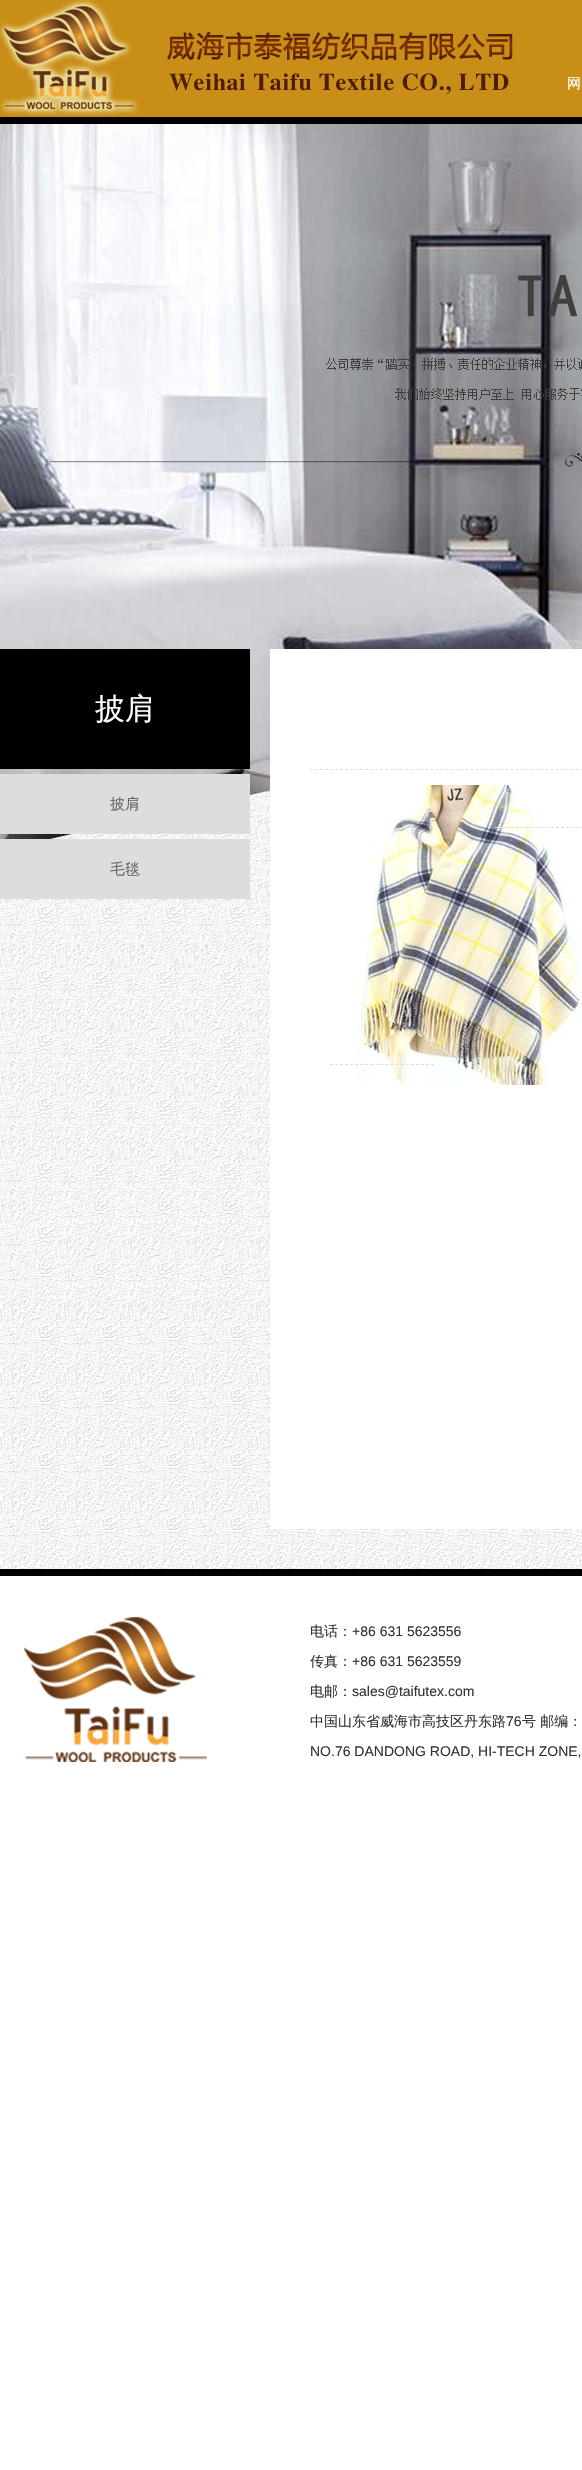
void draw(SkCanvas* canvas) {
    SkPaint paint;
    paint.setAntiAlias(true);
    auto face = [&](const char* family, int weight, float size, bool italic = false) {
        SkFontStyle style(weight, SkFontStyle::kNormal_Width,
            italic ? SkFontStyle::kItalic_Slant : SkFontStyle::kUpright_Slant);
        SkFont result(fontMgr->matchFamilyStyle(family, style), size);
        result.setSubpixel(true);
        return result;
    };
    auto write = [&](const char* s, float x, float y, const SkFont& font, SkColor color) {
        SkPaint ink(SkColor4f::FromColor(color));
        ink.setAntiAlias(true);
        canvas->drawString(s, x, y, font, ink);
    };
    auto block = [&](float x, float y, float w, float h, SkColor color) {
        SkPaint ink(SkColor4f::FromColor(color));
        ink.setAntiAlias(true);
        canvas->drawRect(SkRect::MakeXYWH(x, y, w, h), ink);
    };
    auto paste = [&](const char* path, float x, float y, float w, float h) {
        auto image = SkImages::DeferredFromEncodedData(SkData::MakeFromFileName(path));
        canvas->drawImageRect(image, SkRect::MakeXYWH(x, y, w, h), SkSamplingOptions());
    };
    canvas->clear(SK_ColorWHITE);
    block(0, 0, 582, 117, SkColorSetRGB(201, 142, 23));
    block(0, 117, 582, 7, SK_ColorBLACK);
    paste("pic1.png", 0, 0, 513, 116);
    auto kFont1 = face("WenQuanYi Zen Hei", 500, 14);
    write("网", 567, 88, kFont1, SK_ColorWHITE);
    paste("pic2.png", 0, 124, 582, 1445);
    paste("pic3.png", 50, 275, 532, 192);
    block(0, 649, 250, 120, SK_ColorBLACK);
    auto kFont2 = face("WenQuanYi Zen Hei", 500, 30);
    write("披肩", 95, 719, kFont2, SK_ColorWHITE);
    block(0, 774, 250, 60, SkColorSetRGB(221, 221, 221));
    auto kFont3 = face("WenQuanYi Zen Hei", 500, 15);
    write("披肩", 110, 809, kFont3, SkColorSetRGB(102, 102, 102));
    block(0, 839, 250, 60, SkColorSetRGB(221, 221, 221));
    write("毛毯", 110, 874, kFont3, SkColorSetRGB(102, 102, 102));
    block(270, 649, 312, 880, SK_ColorWHITE);
    paint.setStyle(SkPaint::kStroke_Style);
    paint.setStrokeWidth(1);
    paint.setColor(SkColorSetRGB(221, 221, 221));
    paint.setPathEffect(SkDashPathEffect::Make({{3, 2.01f}}, 0));
    canvas->drawPath(SkPathBuilder().moveTo(310, 769.5f).lineTo(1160, 769.5f).detach(), paint);
    paint.setPathEffect(nullptr);
    paste("pic4.png", 310, 785, 272, 300);
    paint.setPathEffect(SkDashPathEffect::Make({{3, 2.08f}}, 0));
    canvas->drawPath(SkPathBuilder().moveTo(495, 827.5f).lineTo(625, 827.5f).detach(), paint);
    paint.setPathEffect(nullptr);
    paint.setPathEffect(SkDashPathEffect::Make({{3, 2.05f}}, 0));
    canvas->drawPath(SkPathBuilder().moveTo(330, 1064.5f).lineTo(434, 1064.5f).detach(), paint);
    paint.setPathEffect(nullptr);
    block(0, 1569, 582, 7, SK_ColorBLACK);
    paste("pic5.png", 24, 1617, 183, 150);
    write("电话：", 310, 1636, kFont1, SkColorSetRGB(51, 51, 51));
    auto kFont4 = face("Liberation Sans", 400, 14);
    write("+86 631 5623556", 352, 1636, kFont4, SkColorSetRGB(51, 51, 51));
    write("传真：", 310, 1666, kFont1, SkColorSetRGB(51, 51, 51));
    write("+86 631 5623559", 352, 1666, kFont4, SkColorSetRGB(51, 51, 51));
    write("电邮：", 310, 1696, kFont1, SkColorSetRGB(51, 51, 51));
    write("sales@taifutex.com", 352, 1696, kFont4, SkColorSetRGB(51, 51, 51));
    write("中国山东省威海市高技区丹东路", 310, 1726, kFont1, SkColorSetRGB(51, 51, 51));
    write("76", 506, 1726, kFont4, SkColorSetRGB(51, 51, 51));
    write("号 邮编：", 522, 1726, kFont1, SkColorSetRGB(51, 51, 51));
    write("NO.76 DANDONG ROAD, HI-TECH ZONE,", 310, 1756, kFont4, SkColorSetRGB(51, 51, 51));
}
